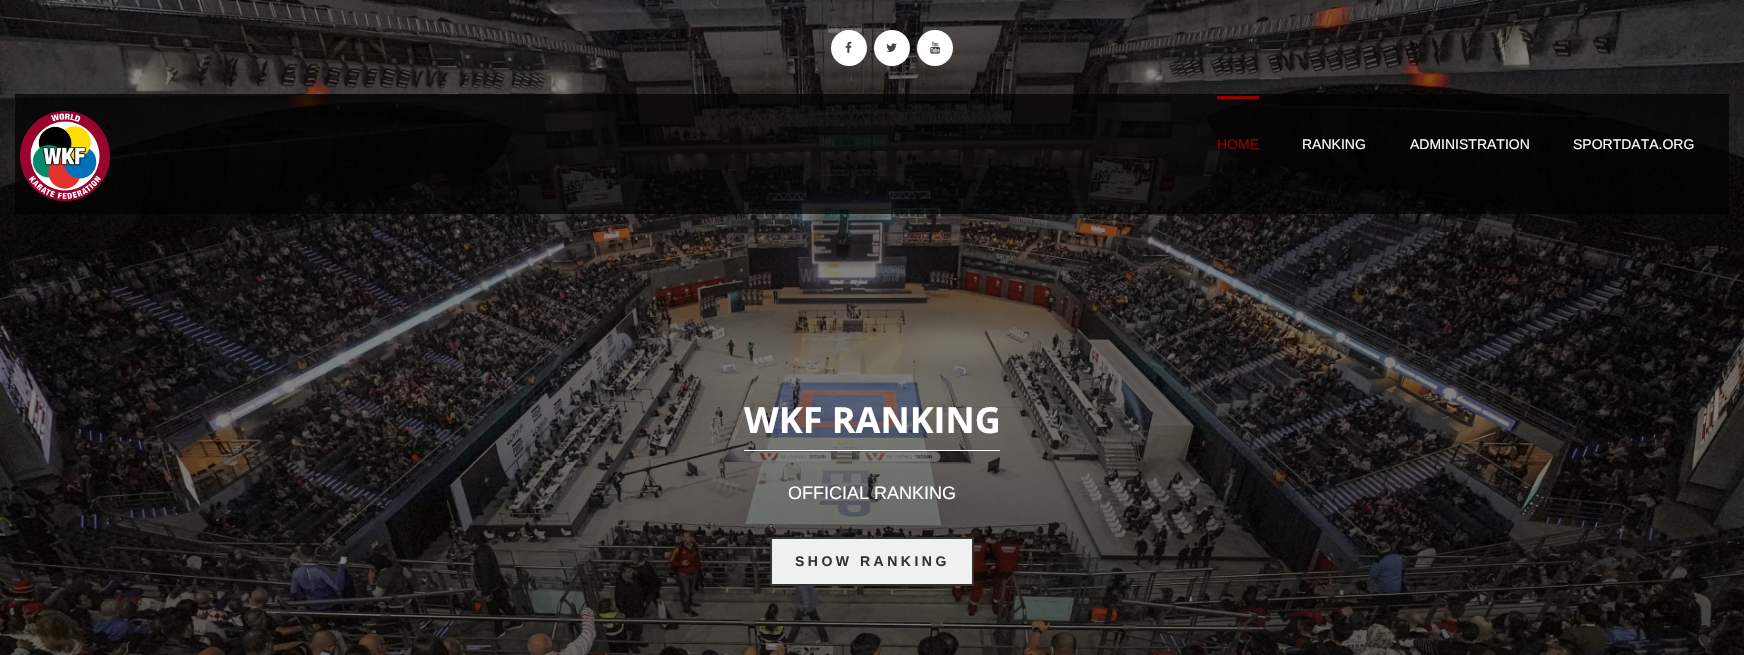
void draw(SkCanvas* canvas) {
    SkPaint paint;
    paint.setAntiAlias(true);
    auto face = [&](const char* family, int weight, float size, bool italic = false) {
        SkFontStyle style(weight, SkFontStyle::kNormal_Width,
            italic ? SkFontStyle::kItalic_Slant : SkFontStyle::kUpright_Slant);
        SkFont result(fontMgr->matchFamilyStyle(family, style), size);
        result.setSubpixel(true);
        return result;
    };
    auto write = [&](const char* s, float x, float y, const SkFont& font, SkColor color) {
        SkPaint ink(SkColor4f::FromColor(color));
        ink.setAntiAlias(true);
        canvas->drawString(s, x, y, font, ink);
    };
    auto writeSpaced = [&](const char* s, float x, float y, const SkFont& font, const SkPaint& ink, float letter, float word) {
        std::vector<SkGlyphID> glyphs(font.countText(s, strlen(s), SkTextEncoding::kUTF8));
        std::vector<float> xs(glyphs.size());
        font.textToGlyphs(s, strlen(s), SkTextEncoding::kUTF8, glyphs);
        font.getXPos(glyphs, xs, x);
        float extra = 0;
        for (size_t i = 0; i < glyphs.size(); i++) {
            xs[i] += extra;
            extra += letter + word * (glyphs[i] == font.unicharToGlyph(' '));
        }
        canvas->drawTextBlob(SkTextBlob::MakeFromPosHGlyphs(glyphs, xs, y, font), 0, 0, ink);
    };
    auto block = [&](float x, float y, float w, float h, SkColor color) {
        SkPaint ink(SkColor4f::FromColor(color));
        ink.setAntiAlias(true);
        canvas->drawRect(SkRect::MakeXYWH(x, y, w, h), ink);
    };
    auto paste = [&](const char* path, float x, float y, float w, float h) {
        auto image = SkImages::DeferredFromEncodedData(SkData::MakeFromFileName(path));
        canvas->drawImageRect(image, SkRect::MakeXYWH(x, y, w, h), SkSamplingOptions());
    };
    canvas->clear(SK_ColorWHITE);
    paste("pic5.png", 0, 0, 1744, 655);
    paint.setColor(SK_ColorWHITE);
    canvas->drawCircle(849, 48, 18, paint);
    paste("pic1.png", 845, 41, 7, 12);
    canvas->drawCircle(892, 48, 18, paint);
    paste("pic2.png", 886, 43, 11, 9);
    canvas->drawCircle(935, 48, 18, paint);
    paste("pic3.png", 930, 41, 11, 13);
    block(15, 94, 1714, 120, SkColorSetARGB(179, 0, 0, 0));
    paste("pic4.png", 20, 111, 91, 90);
    auto kFont1 = face("Liberation Sans", 400, 14);
    write("HOME", 1217, 149, kFont1, SkColorSetRGB(146, 0, 0));
    block(1217, 96, 42, 3, SkColorSetRGB(146, 0, 0));
    write("RANKING", 1302, 149, kFont1, SK_ColorWHITE);
    write("ADMINISTRATION", 1410, 149, kFont1, SK_ColorWHITE);
    write("SPORTDATA.ORG", 1573, 149, kFont1, SK_ColorWHITE);
    block(744, 450, 256, 1, SK_ColorWHITE);
    auto kFont2 = face("Open Sans", 700, 36);
    write("WKF RANKING", 744, 433, kFont2, SK_ColorWHITE);
    auto kFont3 = face("Liberation Sans", 400, 18);
    write("OFFICIAL RANKING", 788, 499, kFont3, SK_ColorWHITE);
    paint.setColor(SkColorSetRGB(239, 240, 240));
    canvas->drawRect(SkRect::MakeXYWH(771, 538, 202, 47), paint);
    paint.setStyle(SkPaint::kStroke_Style);
    paint.setStrokeWidth(2);
    paint.setColor(SkColorSetRGB(51, 51, 51));
    canvas->drawRect(SkRect::MakeXYWH(771, 538, 202, 47), paint);
    auto kFont4 = face("Liberation Sans", 700, 14);
    paint.setStyle(SkPaint::kFill_Style);
    writeSpaced("SHOW RANKING", 795, 566, kFont4, paint, 3.5f, 0);
}
